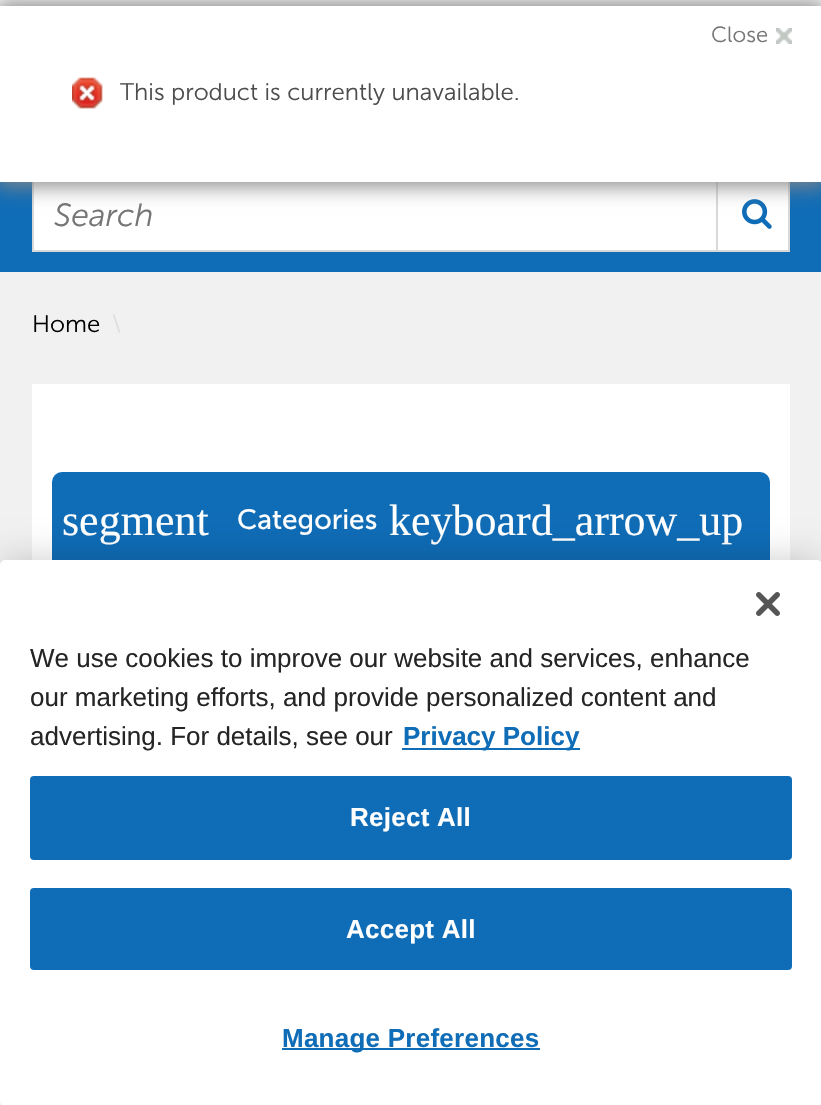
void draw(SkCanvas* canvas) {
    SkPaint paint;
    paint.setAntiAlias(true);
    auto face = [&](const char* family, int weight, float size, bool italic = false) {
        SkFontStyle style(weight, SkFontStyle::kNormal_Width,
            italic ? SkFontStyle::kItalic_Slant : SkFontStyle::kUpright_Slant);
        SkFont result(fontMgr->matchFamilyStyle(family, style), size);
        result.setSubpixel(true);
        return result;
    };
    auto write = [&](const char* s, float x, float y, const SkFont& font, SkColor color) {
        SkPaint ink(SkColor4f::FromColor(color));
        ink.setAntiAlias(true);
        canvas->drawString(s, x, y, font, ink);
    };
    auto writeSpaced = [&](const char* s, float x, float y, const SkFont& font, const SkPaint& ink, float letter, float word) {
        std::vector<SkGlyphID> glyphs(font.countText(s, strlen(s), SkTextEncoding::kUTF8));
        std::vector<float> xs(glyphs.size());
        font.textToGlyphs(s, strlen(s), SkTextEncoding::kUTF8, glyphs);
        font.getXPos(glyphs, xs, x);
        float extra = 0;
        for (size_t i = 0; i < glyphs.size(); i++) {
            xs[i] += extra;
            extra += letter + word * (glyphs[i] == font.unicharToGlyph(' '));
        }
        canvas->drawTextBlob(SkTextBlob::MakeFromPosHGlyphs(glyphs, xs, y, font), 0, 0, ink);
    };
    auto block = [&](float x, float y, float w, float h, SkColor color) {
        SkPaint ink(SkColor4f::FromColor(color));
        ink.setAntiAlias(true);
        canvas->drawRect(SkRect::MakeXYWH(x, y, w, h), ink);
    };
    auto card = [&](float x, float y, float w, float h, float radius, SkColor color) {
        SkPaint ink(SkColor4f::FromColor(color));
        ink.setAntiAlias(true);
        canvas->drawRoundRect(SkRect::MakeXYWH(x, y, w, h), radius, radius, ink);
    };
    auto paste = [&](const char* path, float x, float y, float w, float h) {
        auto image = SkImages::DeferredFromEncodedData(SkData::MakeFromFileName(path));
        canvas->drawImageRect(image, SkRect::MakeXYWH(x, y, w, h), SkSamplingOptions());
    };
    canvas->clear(SkColorSetRGB(241, 241, 241));
    block(0, 0, 821, 6, SK_ColorWHITE);
    block(0, 182, 821, 90, SkColorSetRGB(15, 108, 182));
    block(34, 182, 754, 68, SK_ColorWHITE);
    paint.setStyle(SkPaint::kStroke_Style);
    paint.setStrokeWidth(2);
    paint.setColor(SkColorSetRGB(216, 216, 216));
    canvas->drawRect(SkRect::MakeXYWH(33, 177, 756, 74), paint);
    block(716, 178, 2, 72, SkColorSetRGB(216, 216, 216));
    paste("pic3.png", 742, 199, 30, 30);
    paint.setStyle(SkPaint::kFill_Style);
    paint.setColor(SkColorSetRGB(136, 136, 136));
    paint.setMaskFilter(SkMaskFilter::MakeBlur(kNormal_SkBlurStyle, 10));
    canvas->drawRect(SkRect::MakeXYWH(-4, 2, 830, 184), paint);
    paint.setMaskFilter(nullptr);
    block(0, 6, 821, 176, SK_ColorWHITE);
    auto kFont1 = face("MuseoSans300", 400, 22);
    write("Close", 711, 42, kFont1, SkColorSetRGB(117, 117, 117));
    paste("pic1.png", 776, 28, 16, 16);
    paste("pic2.png", 72, 77, 31, 32);
    auto kFont2 = face("MuseoSans300", 400, 24);
    write("This product is currently unavailable.", 120, 100, kFont2, SkColorSetRGB(77, 77, 77));
    auto kFont3 = face("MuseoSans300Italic", 400, 32);
    write("Search", 54, 226, kFont3, SkColorSetRGB(117, 117, 117));
    write("Home", 32, 332, kFont2, SK_ColorBLACK);
    write("\\", 112, 332, kFont2, SkColorSetRGB(222, 222, 222));
    block(32, 384, 758, 176, SK_ColorWHITE);
    paint.setColor(SkColorSetRGB(15, 108, 182));
    canvas->drawRoundRect(SkRect::MakeXYWH(53, 473, 716, 96), 9, 9, paint);
    paint.setStyle(SkPaint::kStroke_Style);
    canvas->drawRoundRect(SkRect::MakeXYWH(53, 473, 716, 96), 9, 9, paint);
    auto kFont4 = face("Liberation Serif", 400, 44);
    write("segment", 62, 535, kFont4, SK_ColorWHITE);
    auto kFont5 = face("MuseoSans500", 400, 28);
    write("Categories", 237, 529, kFont5, SK_ColorWHITE);
    write("keyboard_arrow_up", 389, 535, kFont4, SK_ColorWHITE);
    block(0, 1101, 821, 4, SK_ColorWHITE);
    paint.setStyle(SkPaint::kFill_Style);
    paint.setColor(SkColorSetARGB(51, 0, 0, 0));
    paint.setMaskFilter(SkMaskFilter::MakeBlur(kNormal_SkBlurStyle, 18));
    canvas->drawRoundRect(SkRect::MakeXYWH(0, 560, 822, 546), 5, 5, paint);
    paint.setMaskFilter(nullptr);
    card(0, 560, 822, 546, 5, SK_ColorWHITE);
    paste("pic4.png", 756, 592, 24, 24);
    auto kFont6 = face("Liberation Sans", 400, 26);
    write("We use cookies to improve our website and services, enhance", 30, 667, kFont6, SkColorSetRGB(37, 37, 37));
    write("our marketing efforts, and provide personalized content and", 30, 706, kFont6, SkColorSetRGB(37, 37, 37));
    write("advertising. For details, see our", 30, 745, kFont6, SkColorSetRGB(37, 37, 37));
    block(402, 748, 178, 2, SkColorSetRGB(15, 108, 182));
    auto kFont7 = face("Liberation Sans", 700, 26);
    write("Privacy Policy", 403, 745, kFont7, SkColorSetRGB(15, 108, 182));
    paint.setColor(SkColorSetRGB(15, 108, 182));
    canvas->drawRoundRect(SkRect::MakeXYWH(31, 777, 760, 82), 3, 3, paint);
    paint.setStyle(SkPaint::kStroke_Style);
    canvas->drawRoundRect(SkRect::MakeXYWH(31, 777, 760, 82), 3, 3, paint);
    paint.setStyle(SkPaint::kFill_Style);
    paint.setColor(SK_ColorWHITE);
    writeSpaced("Reject All", 350, 826, kFont7, paint, 0.25f, 0);
    paint.setColor(SkColorSetRGB(15, 108, 182));
    canvas->drawRoundRect(SkRect::MakeXYWH(31, 889, 760, 80), 3, 3, paint);
    paint.setStyle(SkPaint::kStroke_Style);
    canvas->drawRoundRect(SkRect::MakeXYWH(31, 889, 760, 80), 3, 3, paint);
    paint.setStyle(SkPaint::kFill_Style);
    paint.setColor(SK_ColorWHITE);
    writeSpaced("Accept All", 346, 938, kFont7, paint, 0.25f, 0);
    block(282, 1048, 258, 2, SkColorSetRGB(15, 108, 182));
    paint.setColor(SkColorSetRGB(15, 108, 182));
    writeSpaced("Manage Preferences", 282, 1047, kFont7, paint, 0.25f, 0);
}
